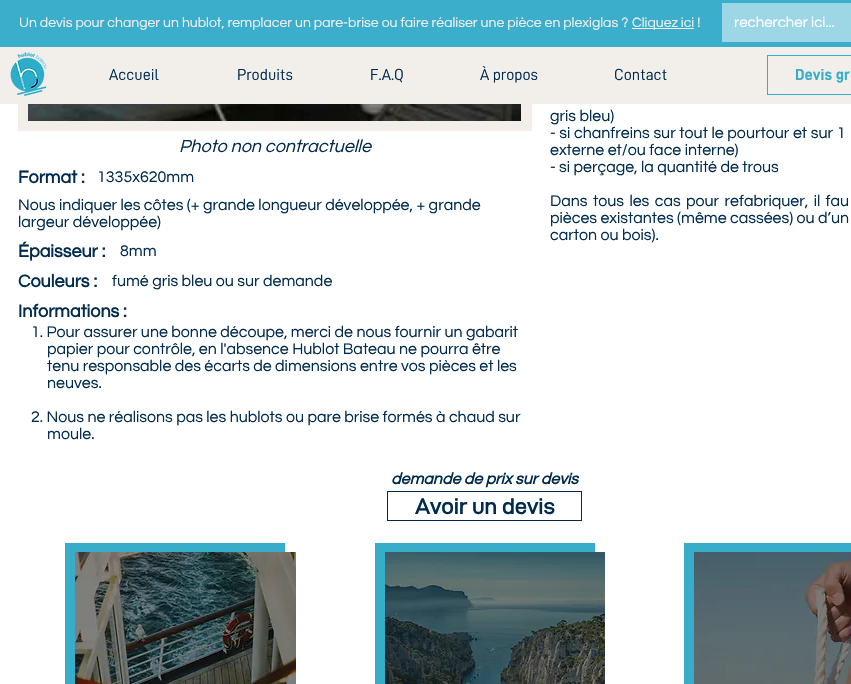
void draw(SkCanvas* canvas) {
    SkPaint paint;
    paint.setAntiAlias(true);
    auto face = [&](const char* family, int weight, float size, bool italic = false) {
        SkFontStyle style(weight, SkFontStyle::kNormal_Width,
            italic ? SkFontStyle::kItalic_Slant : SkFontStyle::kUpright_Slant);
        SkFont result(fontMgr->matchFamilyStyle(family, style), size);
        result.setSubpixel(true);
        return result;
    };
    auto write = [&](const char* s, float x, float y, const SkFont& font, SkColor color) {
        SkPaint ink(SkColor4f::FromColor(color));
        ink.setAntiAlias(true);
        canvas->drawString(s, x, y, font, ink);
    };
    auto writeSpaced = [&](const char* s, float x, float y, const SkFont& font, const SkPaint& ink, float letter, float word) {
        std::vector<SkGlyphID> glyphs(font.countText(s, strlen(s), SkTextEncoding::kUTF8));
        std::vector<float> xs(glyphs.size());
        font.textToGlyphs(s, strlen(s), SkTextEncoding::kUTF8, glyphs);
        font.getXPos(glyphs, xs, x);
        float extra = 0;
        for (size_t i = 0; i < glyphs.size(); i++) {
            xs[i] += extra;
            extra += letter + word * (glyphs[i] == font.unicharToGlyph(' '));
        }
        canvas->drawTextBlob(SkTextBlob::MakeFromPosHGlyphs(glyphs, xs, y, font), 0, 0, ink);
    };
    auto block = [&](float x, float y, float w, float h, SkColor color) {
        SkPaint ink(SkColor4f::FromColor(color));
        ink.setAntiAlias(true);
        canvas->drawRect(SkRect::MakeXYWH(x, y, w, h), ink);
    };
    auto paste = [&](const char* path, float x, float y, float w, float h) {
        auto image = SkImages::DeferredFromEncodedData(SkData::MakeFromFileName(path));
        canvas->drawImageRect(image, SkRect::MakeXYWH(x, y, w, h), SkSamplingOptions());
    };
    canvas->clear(SK_ColorWHITE);
    block(0, 0, 851, 47, SkColorSetRGB(58, 174, 203));
    auto kFont1 = face("Questrial", 400, 14);
    write("Un devis pour changer un hublot, remplacer un pare-brise ou faire réaliser une pièce en plexiglas ?", 19, 27, kFont1, SkColorSetRGB(241, 238, 233));
    block(632, 28, 62, 1, SkColorSetRGB(241, 238, 233));
    write("Cliquez ici !", 632, 27, kFont1, SkColorSetRGB(241, 238, 233));
    block(722, 3, 129, 39, SkColorSetRGB(157, 215, 229));
    auto kFont2 = face("Questrial", 400, 15);
    write("rechercher ici...", 734, 27, kFont2, SK_ColorWHITE);
    block(0, 47, 851, 57, SkColorSetRGB(242, 239, 234));
    paste("pic1.png", 10, 52, 38, 44);
    auto kFont3 = face("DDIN", 400, 16);
    write("Accueil", 109, 80, kFont3, SkColorSetRGB(0, 43, 78));
    write("Produits", 237, 80, kFont3, SkColorSetRGB(0, 43, 78));
    write("F.A.Q", 370, 80, kFont3, SkColorSetRGB(0, 43, 78));
    write("À propos", 480, 80, kFont3, SkColorSetRGB(0, 43, 78));
    write("Contact", 614, 80, kFont3, SkColorSetRGB(0, 43, 78));
    paint.setStyle(SkPaint::kStroke_Style);
    paint.setStrokeWidth(1);
    paint.setColor(SkColorSetRGB(56, 173, 202));
    canvas->drawRect(SkRect::MakeXYWH(767.5f, 55.5f, 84, 39), paint);
    auto kFont4 = face("DDIN", 700, 16);
    write("Devis gr", 795, 80, kFont4, SkColorSetRGB(56, 173, 202));
    block(18, 104, 514, 27, SkColorSetRGB(242, 239, 234));
    paste("pic2.png", 28, 104, 493, 17);
    auto kFont5 = face("Questrial", 400, 18, true);
    write("Photo non contractuelle", 179, 152, kFont5, SkColorSetRGB(0, 43, 78));
    auto kFont6 = face("Questrial", 700, 18);
    write("Format :", 18, 183, kFont6, SkColorSetRGB(0, 43, 78));
    auto kFont7 = face("Questrial", 400, 16);
    write("1335x620mm", 97, 182, kFont7, SkColorSetRGB(0, 43, 78));
    write("Nous indiquer les côtes (+ grande longueur développée, + grande", 18, 210, kFont7, SkColorSetRGB(0, 43, 78));
    write("largeur développée)", 18, 227, kFont7, SkColorSetRGB(0, 43, 78));
    write("Épaisseur :", 18, 257, kFont6, SkColorSetRGB(0, 43, 78));
    write("8mm", 120, 256, kFont7, SkColorSetRGB(0, 43, 78));
    write("Couleurs :", 18, 287, kFont6, SkColorSetRGB(0, 43, 78));
    write("fumé gris bleu ou sur demande", 112, 286, kFont7, SkColorSetRGB(0, 43, 78));
    write("Informations :", 18, 317, kFont6, SkColorSetRGB(0, 43, 78));
    write("1. Pour assurer une bonne découpe, merci de nous fournir un gabarit", 31, 337, kFont7, SkColorSetRGB(0, 43, 78));
    write("papier pour contrôle, en l'absence Hublot Bateau ne pourra être", 47, 354, kFont7, SkColorSetRGB(0, 43, 78));
    write("tenu responsable des écarts de dimensions entre vos pièces et les", 47, 371, kFont7, SkColorSetRGB(0, 43, 78));
    write("neuves.", 47, 388, kFont7, SkColorSetRGB(0, 43, 78));
    write("2. Nous ne réalisons pas les hublots ou pare brise formés à chaud sur", 31, 422, kFont7, SkColorSetRGB(0, 43, 78));
    write("moule.", 47, 439, kFont7, SkColorSetRGB(0, 43, 78));
    write("gris bleu)", 550, 121, kFont7, SkColorSetRGB(0, 43, 78));
    paint.setStyle(SkPaint::kFill_Style);
    paint.setColor(SkColorSetRGB(0, 43, 78));
    writeSpaced("- si chanfreins sur tout le pourtour et sur 1", 550, 138, kFont7, paint, 0, 0.25f);
    write("externe et/ou face interne)", 550, 155, kFont7, SkColorSetRGB(0, 43, 78));
    write("- si perçage, la quantité de trous", 550, 172, kFont7, SkColorSetRGB(0, 43, 78));
    writeSpaced("Dans tous les cas pour refabriquer, il fau", 550, 206, kFont7, paint, 0, 2);
    write("pièces existantes (même cassées) ou d’un", 550, 223, kFont7, SkColorSetRGB(0, 43, 78));
    write("carton ou bois).", 550, 240, kFont7, SkColorSetRGB(0, 43, 78));
    auto kFont8 = face("Questrial", 700, 16, true);
    write("demande de prix sur devis", 391, 484, kFont8, SkColorSetRGB(0, 43, 78));
    paint.setStyle(SkPaint::kStroke_Style);
    canvas->drawRect(SkRect::MakeXYWH(387.5f, 491.5f, 194, 29), paint);
    auto kFont9 = face("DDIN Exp", 700, 22);
    write("Avoir un devis", 415, 514, kFont9, SkColorSetRGB(0, 43, 78));
    block(65, 543, 220, 141, SkColorSetRGB(56, 173, 202));
    block(375, 543, 220, 141, SkColorSetRGB(56, 173, 202));
    block(684, 543, 167, 141, SkColorSetRGB(56, 173, 202));
    paste("pic3.png", 75, 552, 221, 132);
    paste("pic4.png", 385, 552, 220, 132);
    paste("pic5.png", 694, 552, 157, 132);
}
